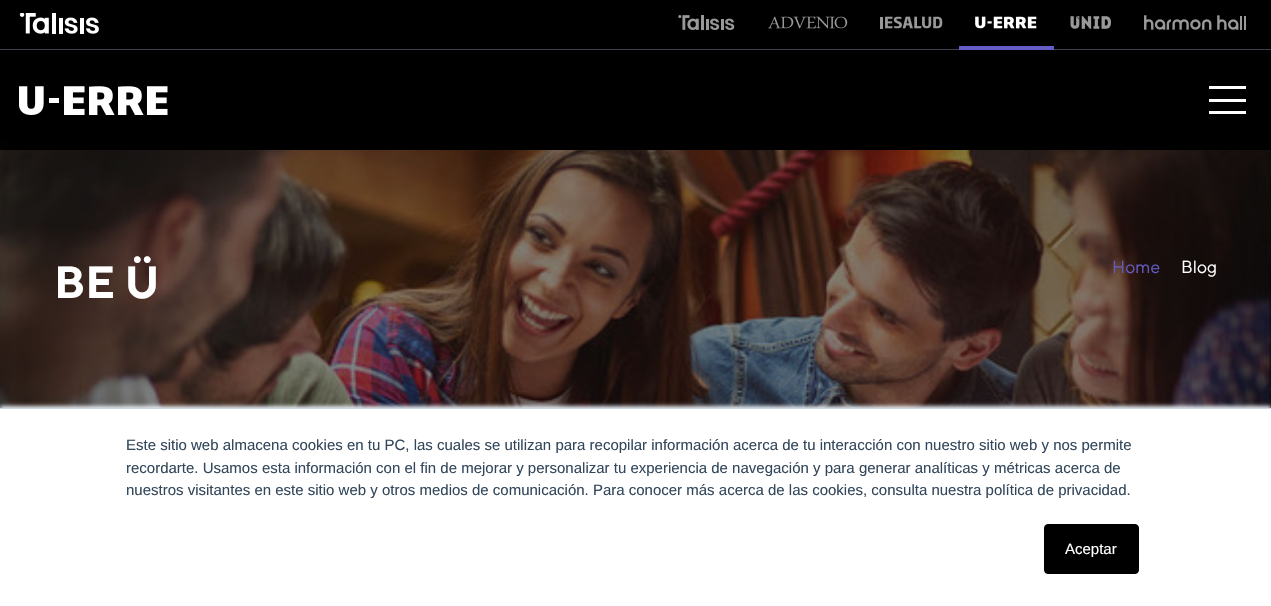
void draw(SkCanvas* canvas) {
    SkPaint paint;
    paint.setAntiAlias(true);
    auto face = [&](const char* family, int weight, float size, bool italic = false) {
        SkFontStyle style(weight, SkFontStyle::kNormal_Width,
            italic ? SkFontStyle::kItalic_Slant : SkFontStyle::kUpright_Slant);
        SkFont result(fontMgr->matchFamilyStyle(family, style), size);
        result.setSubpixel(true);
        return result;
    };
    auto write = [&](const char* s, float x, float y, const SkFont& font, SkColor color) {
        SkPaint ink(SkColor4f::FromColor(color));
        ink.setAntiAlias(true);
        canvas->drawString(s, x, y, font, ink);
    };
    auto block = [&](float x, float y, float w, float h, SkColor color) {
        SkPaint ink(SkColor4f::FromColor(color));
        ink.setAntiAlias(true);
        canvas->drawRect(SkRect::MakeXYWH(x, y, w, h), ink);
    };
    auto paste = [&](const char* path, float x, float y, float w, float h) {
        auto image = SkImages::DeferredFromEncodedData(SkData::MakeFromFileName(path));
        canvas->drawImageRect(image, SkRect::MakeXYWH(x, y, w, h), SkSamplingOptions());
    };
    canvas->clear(SK_ColorWHITE);
    block(0, 50, 1271, 100, SK_ColorBLACK);
    paste("pic9.png", 0, 150, 1271, 258);
    paint.setColor(SkColorSetARGB(51, 7, 10, 25));
    paint.setMaskFilter(SkMaskFilter::MakeBlur(kNormal_SkBlurStyle, 7.5f));
    canvas->drawRect(SkRect::MakeXYWH(-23, 155, 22, 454), paint);
    paint.setMaskFilter(nullptr);
    block(0, 0, 1271, 49, SK_ColorBLACK);
    block(0, 49, 1271, 1, SkColorSetRGB(64, 65, 80));
    paste("pic1.png", 19, 13, 80, 21);
    paste("pic2.png", 678, 15, 57, 15);
    paste("pic3.png", 768, 16, 80, 13);
    paste("pic4.png", 880, 16, 63, 13);
    block(959, 46, 95, 4, SkColorSetRGB(101, 93, 198));
    paste("pic5.png", 975, 16, 62, 13);
    paste("pic6.png", 1070, 16, 41, 13);
    paste("pic7.png", 1144, 15, 102, 15);
    paste("pic8.png", 19, 86, 149, 29);
    block(1209, 86, 37, 3, SK_ColorWHITE);
    block(1209, 99, 37, 3, SK_ColorWHITE);
    block(1209, 111, 37, 3, SK_ColorWHITE);
    auto kFont1 = face("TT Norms", 700, 45);
    write("BE Ü", 54, 298, kFont1, SK_ColorWHITE);
    auto kFont2 = face("TT Norms", 400, 17.5f);
    write("Home", 1112, 273, kFont2, SkColorSetRGB(101, 93, 198));
    write("Blog", 1181, 273, kFont2, SK_ColorWHITE);
    paint.setColor(SkColorSetRGB(234, 240, 246));
    paint.setMaskFilter(SkMaskFilter::MakeBlur(kNormal_SkBlurStyle, 2));
    canvas->drawRect(SkRect::MakeXYWH(0, 406, 1271, 199), paint);
    paint.setMaskFilter(nullptr);
    block(0, 409, 1271, 197, SK_ColorWHITE);
    block(0, 408, 1271, 1, SkColorSetRGB(203, 214, 226));
    auto kFont3 = face("Liberation Sans", 400, 15);
    write("Este sitio web almacena cookies en tu PC, las cuales se utilizan para recopilar información acerca de tu interacción con nuestro sitio web y nos permite", 126, 450, kFont3, SkColorSetRGB(51, 71, 91));
    write("recordarte. Usamos esta información con el fin de mejorar y personalizar tu experiencia de navegación y para generar analíticas y métricas acerca de", 126, 473, kFont3, SkColorSetRGB(51, 71, 91));
    write("nuestros visitantes en este sitio web y otros medios de comunicación. Para conocer más acerca de las cookies, consulta nuestra política de privacidad.", 126, 495, kFont3, SkColorSetRGB(51, 71, 91));
    paint.setColor(SK_ColorBLACK);
    canvas->drawRoundRect(SkRect::MakeXYWH(1044.5f, 524.5f, 94, 49), 3.5f, 3.5f, paint);
    paint.setStyle(SkPaint::kStroke_Style);
    paint.setStrokeWidth(1);
    canvas->drawRoundRect(SkRect::MakeXYWH(1044.5f, 524.5f, 94, 49), 3.5f, 3.5f, paint);
    write("Aceptar", 1065, 554, kFont3, SK_ColorWHITE);
}
